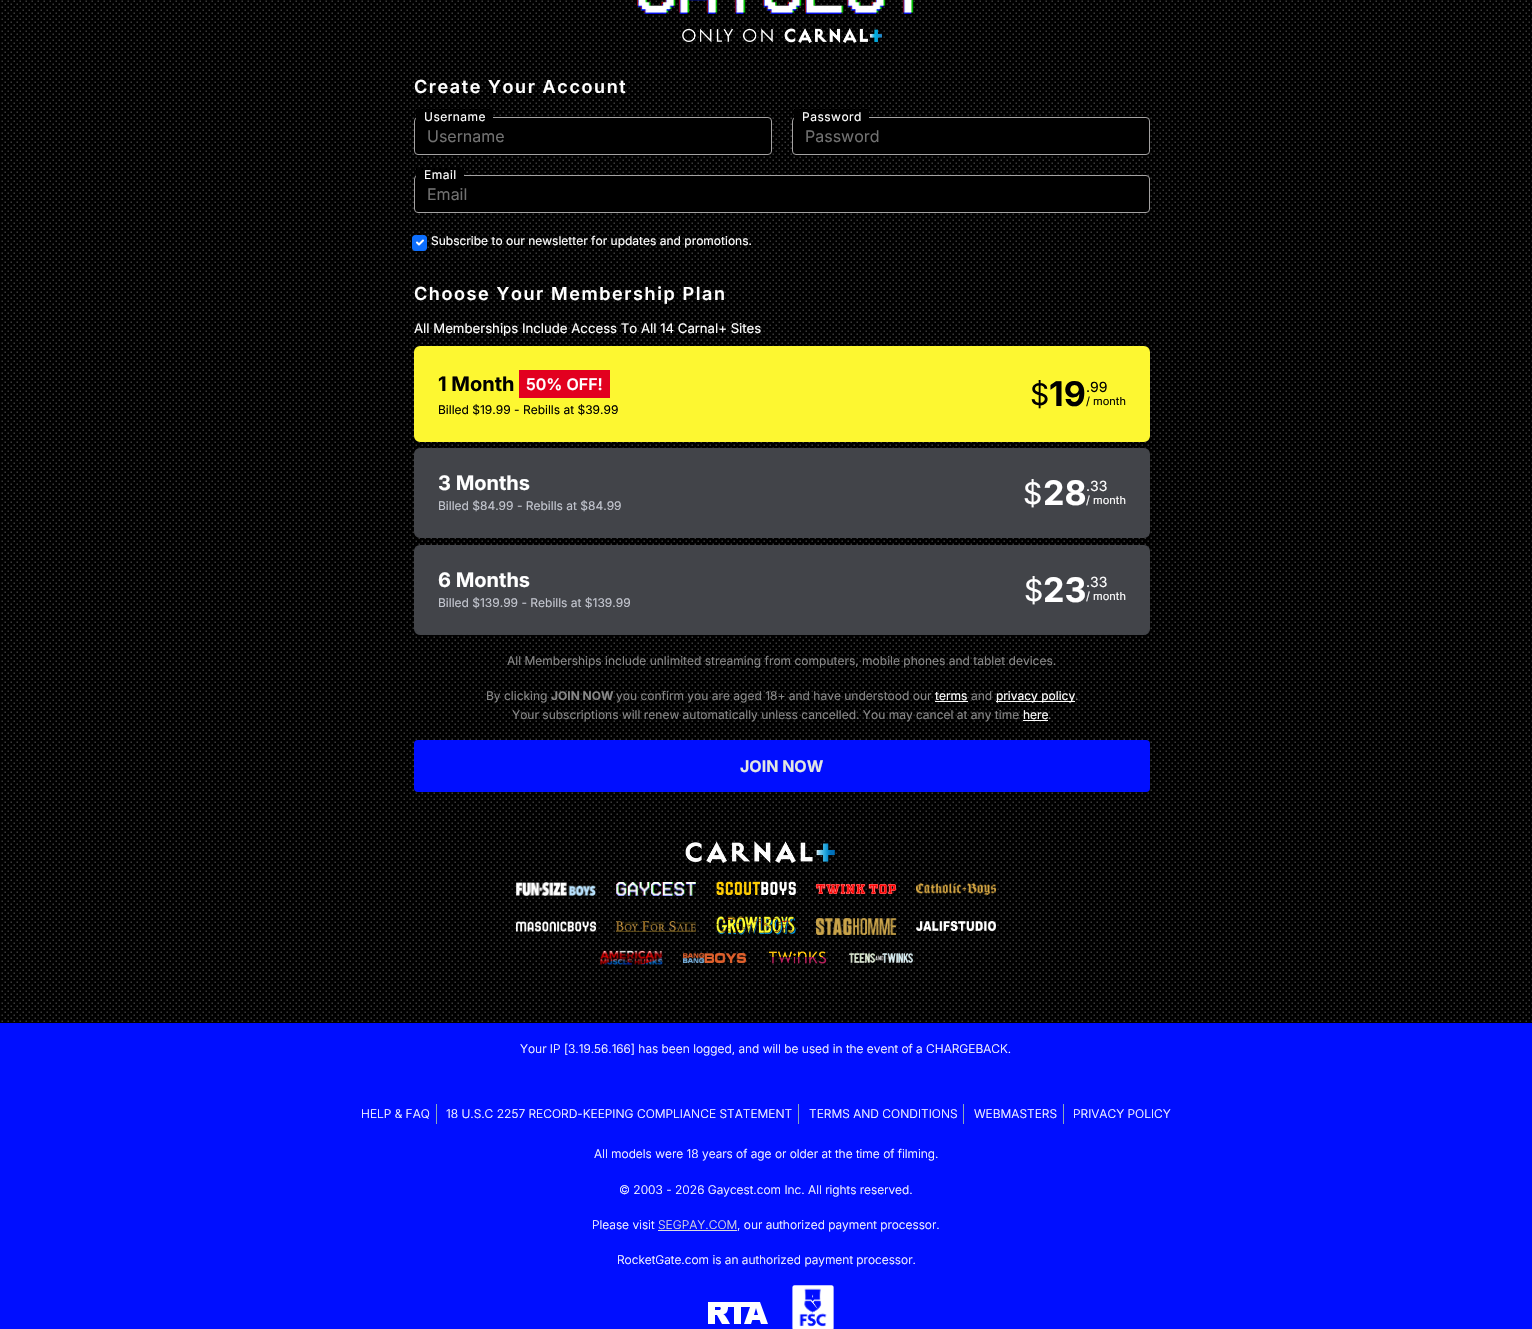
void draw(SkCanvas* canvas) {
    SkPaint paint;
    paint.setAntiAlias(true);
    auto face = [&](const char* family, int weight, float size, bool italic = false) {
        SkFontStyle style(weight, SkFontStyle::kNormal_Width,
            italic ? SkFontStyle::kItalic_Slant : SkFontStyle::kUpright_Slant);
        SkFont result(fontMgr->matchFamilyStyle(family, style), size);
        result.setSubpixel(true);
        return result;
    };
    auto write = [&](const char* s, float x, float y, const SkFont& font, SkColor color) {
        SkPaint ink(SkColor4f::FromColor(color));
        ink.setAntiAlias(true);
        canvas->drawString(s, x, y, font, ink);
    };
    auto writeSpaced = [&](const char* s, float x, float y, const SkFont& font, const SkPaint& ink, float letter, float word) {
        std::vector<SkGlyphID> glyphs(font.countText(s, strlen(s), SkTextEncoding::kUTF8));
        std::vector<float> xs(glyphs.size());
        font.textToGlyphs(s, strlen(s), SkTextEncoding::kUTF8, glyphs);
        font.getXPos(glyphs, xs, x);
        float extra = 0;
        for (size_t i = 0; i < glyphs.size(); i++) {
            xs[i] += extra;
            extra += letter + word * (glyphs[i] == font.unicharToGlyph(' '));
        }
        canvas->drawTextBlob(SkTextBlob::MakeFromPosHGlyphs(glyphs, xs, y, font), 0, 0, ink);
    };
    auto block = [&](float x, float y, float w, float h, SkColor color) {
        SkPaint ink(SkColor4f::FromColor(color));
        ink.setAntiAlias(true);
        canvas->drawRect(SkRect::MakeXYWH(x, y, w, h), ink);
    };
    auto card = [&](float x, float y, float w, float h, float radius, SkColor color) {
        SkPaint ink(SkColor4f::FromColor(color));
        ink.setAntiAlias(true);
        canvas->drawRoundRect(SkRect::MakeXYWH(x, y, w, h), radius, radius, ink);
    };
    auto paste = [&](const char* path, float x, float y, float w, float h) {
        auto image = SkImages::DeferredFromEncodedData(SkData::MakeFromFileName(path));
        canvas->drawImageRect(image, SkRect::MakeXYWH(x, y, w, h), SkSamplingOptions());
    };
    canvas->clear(SK_ColorBLACK);
    paste("pic1.png", 1, 0, 1531, 1022);
    paste("pic2.png", 637, 0, 277, 14);
    paste("pic3.png", 682, 28, 200, 15);
    auto kFont1 = face("Inter", 600, 18);
    paint.setColor(SK_ColorWHITE);
    writeSpaced("Create Your Account", 414, 93, kFont1, paint, 1.6f, 0);
    paint.setColor(SK_ColorBLACK);
    canvas->drawRoundRect(SkRect::MakeXYWH(414.5f, 117.5f, 357, 37), 3.5f, 3.5f, paint);
    paint.setStyle(SkPaint::kStroke_Style);
    paint.setStrokeWidth(1);
    paint.setColor(SkColorSetRGB(164, 162, 162));
    canvas->drawRoundRect(SkRect::MakeXYWH(414.5f, 117.5f, 357, 37), 3.5f, 3.5f, paint);
    block(416, 109, 77, 10, SK_ColorBLACK);
    auto kFont2 = face("Inter", 400, 12);
    paint.setStyle(SkPaint::kFill_Style);
    paint.setColor(SK_ColorWHITE);
    writeSpaced("Username", 424, 121, kFont2, paint, 0.5f, 0);
    auto kFont3 = face("Inter", 400, 16);
    write("Username", 427, 142, kFont3, SkColorSetRGB(113, 113, 113));
    paint.setColor(SK_ColorBLACK);
    canvas->drawRoundRect(SkRect::MakeXYWH(792.5f, 117.5f, 357, 37), 3.5f, 3.5f, paint);
    paint.setStyle(SkPaint::kStroke_Style);
    paint.setColor(SkColorSetRGB(164, 162, 162));
    canvas->drawRoundRect(SkRect::MakeXYWH(792.5f, 117.5f, 357, 37), 3.5f, 3.5f, paint);
    block(794, 109, 75, 10, SK_ColorBLACK);
    paint.setStyle(SkPaint::kFill_Style);
    paint.setColor(SK_ColorWHITE);
    writeSpaced("Password", 802, 121, kFont2, paint, 0.5f, 0);
    write("Password", 805, 142, kFont3, SkColorSetRGB(113, 113, 113));
    paint.setColor(SK_ColorBLACK);
    canvas->drawRoundRect(SkRect::MakeXYWH(414.5f, 175.5f, 735, 37), 3.5f, 3.5f, paint);
    paint.setStyle(SkPaint::kStroke_Style);
    paint.setColor(SkColorSetRGB(164, 162, 162));
    canvas->drawRoundRect(SkRect::MakeXYWH(414.5f, 175.5f, 735, 37), 3.5f, 3.5f, paint);
    block(416, 168, 48, 9, SK_ColorBLACK);
    paint.setStyle(SkPaint::kFill_Style);
    paint.setColor(SK_ColorWHITE);
    writeSpaced("Email", 424, 179, kFont2, paint, 0.5f, 0);
    write("Email", 427, 200, kFont3, SkColorSetRGB(113, 113, 113));
    card(412, 235, 15, 16, 4, SkColorSetRGB(13, 110, 253));
    paint.setStyle(SkPaint::kStroke_Style);
    paint.setStrokeWidth(2);
    paint.setStrokeCap(SkPaint::kRound_Cap);
    paint.setStrokeJoin(SkPaint::kRound_Join);
    canvas->drawPath(SkPathBuilder().moveTo(417, 242.5f).lineTo(419, 244.5f).lineTo(423, 240.5f).detach(), paint);
    paint.setStrokeWidth(1);
    paint.setStrokeCap(SkPaint::kButt_Cap);
    paint.setStrokeJoin(SkPaint::kMiter_Join);
    paint.setColor(SkColorSetRGB(13, 110, 253));
    canvas->drawRoundRect(SkRect::MakeXYWH(412.5f, 235.5f, 14, 15), 3.5f, 3.5f, paint);
    write("Subscribe to our newsletter for updates and promotions.", 431, 245, kFont2, SK_ColorWHITE);
    paint.setStyle(SkPaint::kFill_Style);
    paint.setColor(SK_ColorWHITE);
    writeSpaced("Choose Your Membership Plan", 414, 300, kFont1, paint, 1.6f, 0);
    auto kFont4 = face("Inter", 400, 13.2f);
    write("All Memberships Include Access To All 14 Carnal+ Sites", 414, 333, kFont4, SK_ColorWHITE);
    paint.setColor(SkColorSetRGB(253, 247, 49));
    canvas->drawRoundRect(SkRect::MakeXYWH(415, 347, 734, 94), 5, 5, paint);
    paint.setStyle(SkPaint::kStroke_Style);
    paint.setStrokeWidth(2);
    canvas->drawRoundRect(SkRect::MakeXYWH(415, 347, 734, 94), 5, 5, paint);
    auto kFont5 = face("Inter", 700, 20);
    write("1 Month", 438, 391, kFont5, SK_ColorBLACK);
    block(519, 370, 91, 28, SkColorSetRGB(226, 0, 31));
    auto kFont6 = face("Inter", 600, 16);
    write("50% OFF!", 526, 390, kFont6, SK_ColorWHITE);
    write("Billed $19.99 - Rebills at $39.99", 438, 414, kFont2, SK_ColorBLACK);
    auto kFont7 = face("Inter", 400, 30);
    write("$", 1030, 405, kFont7, SK_ColorBLACK);
    auto kFont8 = face("Inter", 700, 34);
    write("19", 1049, 406, kFont8, SK_ColorBLACK);
    auto kFont9 = face("Inter", 400, 14);
    write(".99", 1086, 392, kFont9, SK_ColorBLACK);
    auto kFont10 = face("Inter", 400, 11);
    write("/ month", 1086, 405, kFont10, SK_ColorBLACK);
    paint.setStyle(SkPaint::kFill_Style);
    paint.setColor(SkColorSetRGB(66, 68, 73));
    canvas->drawRoundRect(SkRect::MakeXYWH(415, 449, 734, 88), 5, 5, paint);
    paint.setStyle(SkPaint::kStroke_Style);
    canvas->drawRoundRect(SkRect::MakeXYWH(415, 449, 734, 88), 5, 5, paint);
    write("3 Months", 438, 490, kFont5, SK_ColorWHITE);
    write("Billed $84.99 - Rebills at $84.99", 438, 510, kFont2, SkColorSetRGB(195, 198, 207));
    write("$", 1023, 504, kFont7, SK_ColorWHITE);
    write("28", 1043, 505, kFont8, SK_ColorWHITE);
    write(".33", 1086, 491, kFont9, SK_ColorWHITE);
    write("/ month", 1086, 504, kFont10, SK_ColorWHITE);
    paint.setStyle(SkPaint::kFill_Style);
    canvas->drawRoundRect(SkRect::MakeXYWH(415, 546, 734, 88), 5, 5, paint);
    paint.setStyle(SkPaint::kStroke_Style);
    canvas->drawRoundRect(SkRect::MakeXYWH(415, 546, 734, 88), 5, 5, paint);
    write("6 Months", 438, 587, kFont5, SK_ColorWHITE);
    write("Billed $139.99 - Rebills at $139.99", 438, 607, kFont2, SkColorSetRGB(195, 198, 207));
    write("$", 1024, 601, kFont7, SK_ColorWHITE);
    write("23", 1043, 602, kFont8, SK_ColorWHITE);
    write(".33", 1086, 587, kFont9, SK_ColorWHITE);
    write("/ month", 1086, 600, kFont10, SK_ColorWHITE);
    write("All Memberships include unlimited streaming from computers, mobile phones and tablet devices.", 507, 665, kFont2, SkColorSetRGB(136, 136, 136));
    write("By clicking", 486, 700, kFont2, SkColorSetRGB(136, 136, 136));
    auto kFont11 = face("Inter", 700, 12);
    write("JOIN NOW", 551, 700, kFont11, SkColorSetRGB(136, 136, 136));
    write("you confirm you are aged 18+ and have understood our", 616, 700, kFont2, SkColorSetRGB(136, 136, 136));
    write("terms", 935, 700, kFont2, SK_ColorWHITE);
    block(935, 701, 33, 1, SK_ColorWHITE);
    write("and", 971, 700, kFont2, SkColorSetRGB(136, 136, 136));
    block(996, 701, 79, 1, SK_ColorWHITE);
    write("privacy policy", 996, 700, kFont2, SK_ColorWHITE);
    write(".", 1075, 700, kFont2, SkColorSetRGB(136, 136, 136));
    write("Your subscriptions will renew automatically unless cancelled. You may cancel at any time", 512, 719, kFont2, SkColorSetRGB(136, 136, 136));
    write("here", 1023, 719, kFont2, SK_ColorWHITE);
    block(1023, 720, 25, 1, SK_ColorWHITE);
    write(".", 1048, 719, kFont2, SkColorSetRGB(136, 136, 136));
    card(414, 740, 736, 52, 4, SkColorSetRGB(0, 14, 255));
    auto kFont12 = face("Inter", 700, 16);
    write("JOIN NOW", 740, 772, kFont12, SkColorSetRGB(226, 230, 226));
    paste("pic4.png", 685, 841, 150, 22);
    paste("pic5.png", 516, 882, 80, 14);
    paste("pic6.png", 616, 882, 80, 14);
    paste("pic7.png", 716, 881, 80, 14);
    paste("pic8.png", 816, 884, 80, 10);
    paste("pic9.png", 916, 883, 80, 12);
    paste("pic10.png", 516, 921, 80, 11);
    paste("pic11.png", 616, 921, 80, 11);
    paste("pic12.png", 716, 916, 80, 19);
    paste("pic13.png", 816, 918, 80, 17);
    paste("pic14.png", 916, 921, 80, 10);
    paste("pic15.png", 600, 950, 63, 15);
    paste("pic16.png", 683, 953, 63, 10);
    paste("pic17.png", 768, 951, 59, 13);
    paste("pic18.png", 849, 953, 64, 10);
    block(0, 1023, 1532, 306, SkColorSetRGB(0, 14, 255));
    auto kFont13 = face("Inter", 300, 12);
    write("Your IP [3.19.56.166] has been logged, and will be used in the event of a CHARGEBACK.", 520, 1053, kFont13, SK_ColorWHITE);
    block(436, 1104, 1, 20, SkColorSetRGB(139, 168, 183));
    write("HELP & FAQ", 361, 1118, kFont13, SK_ColorWHITE);
    block(798, 1104, 1, 20, SkColorSetRGB(139, 168, 183));
    write("18 U.S.C 2257 RECORD-KEEPING COMPLIANCE STATEMENT", 446, 1118, kFont13, SK_ColorWHITE);
    block(963, 1104, 1, 20, SkColorSetRGB(139, 168, 183));
    write("TERMS AND CONDITIONS", 809, 1118, kFont13, SK_ColorWHITE);
    block(1063, 1104, 1, 20, SkColorSetRGB(139, 168, 183));
    write("WEBMASTERS", 974, 1118, kFont13, SK_ColorWHITE);
    write("PRIVACY POLICY", 1073, 1118, kFont13, SK_ColorWHITE);
    write("All models were 18 years of age or older at the time of filming.", 594, 1158, kFont13, SK_ColorWHITE);
    write("© 2003 - 2026 Gaycest.com Inc. All rights reserved.", 619, 1194, kFont13, SK_ColorWHITE);
    write("Please visit", 592, 1229, kFont13, SK_ColorWHITE);
    write("SEGPAY.COM", 658, 1229, kFont13, SkColorSetRGB(221, 221, 221));
    block(658, 1230, 79, 1, SkColorSetRGB(221, 221, 221));
    write(", our authorized payment processor.", 737, 1229, kFont13, SK_ColorWHITE);
    write("RocketGate.com is an authorized payment processor.", 617, 1264, kFont13, SK_ColorWHITE);
    paste("pic19.png", 708, 1302, 60, 22);
    paste("pic20.png", 792, 1285, 42, 44);
}
